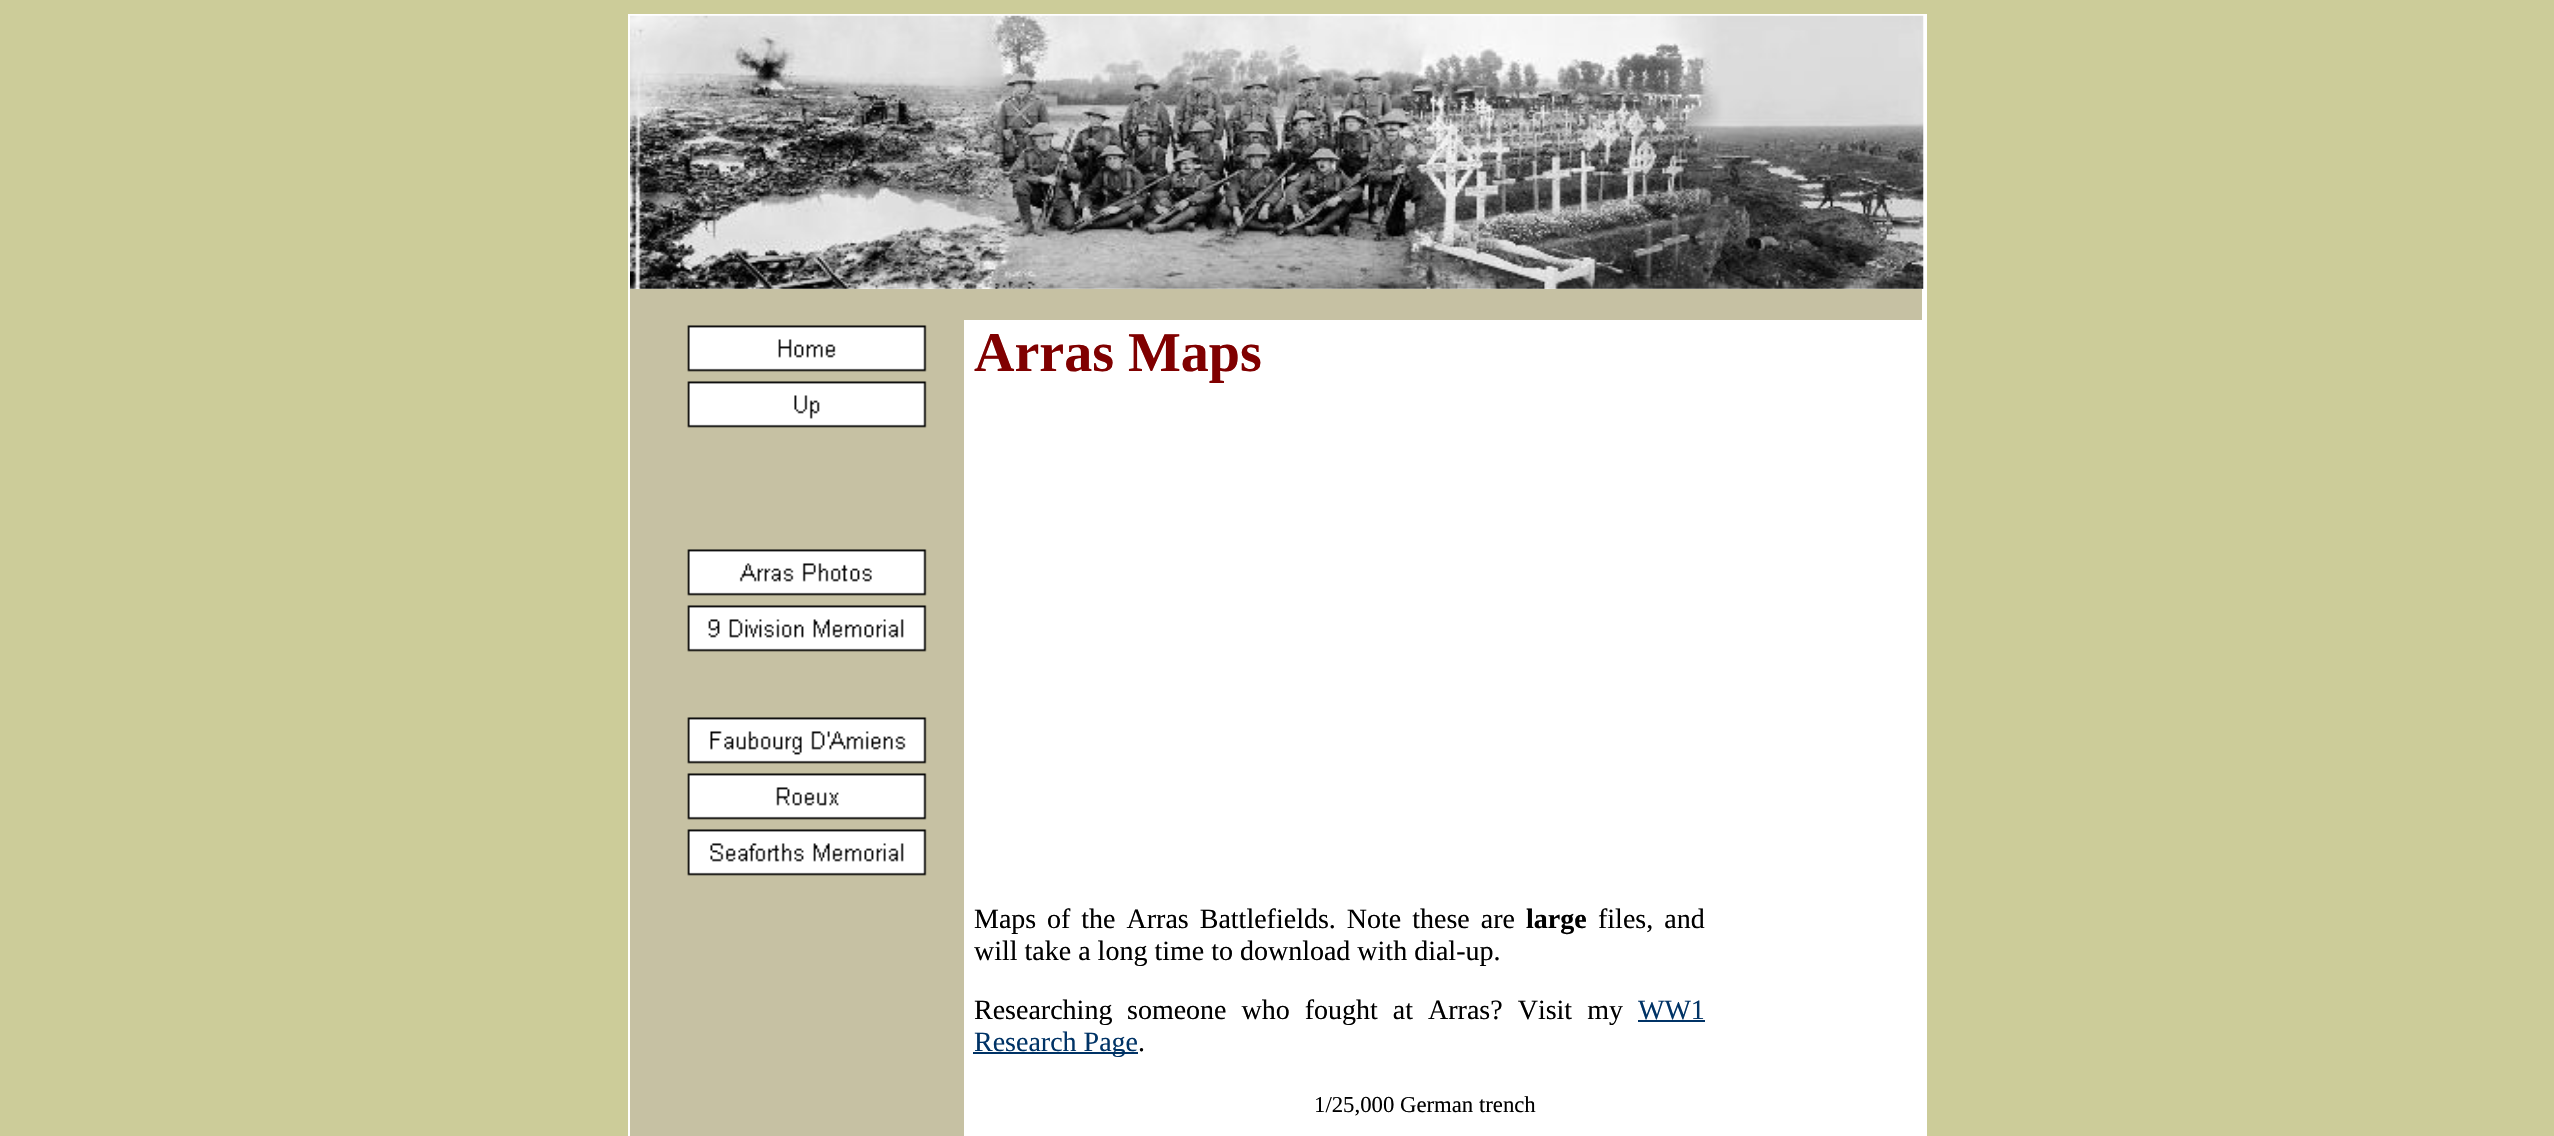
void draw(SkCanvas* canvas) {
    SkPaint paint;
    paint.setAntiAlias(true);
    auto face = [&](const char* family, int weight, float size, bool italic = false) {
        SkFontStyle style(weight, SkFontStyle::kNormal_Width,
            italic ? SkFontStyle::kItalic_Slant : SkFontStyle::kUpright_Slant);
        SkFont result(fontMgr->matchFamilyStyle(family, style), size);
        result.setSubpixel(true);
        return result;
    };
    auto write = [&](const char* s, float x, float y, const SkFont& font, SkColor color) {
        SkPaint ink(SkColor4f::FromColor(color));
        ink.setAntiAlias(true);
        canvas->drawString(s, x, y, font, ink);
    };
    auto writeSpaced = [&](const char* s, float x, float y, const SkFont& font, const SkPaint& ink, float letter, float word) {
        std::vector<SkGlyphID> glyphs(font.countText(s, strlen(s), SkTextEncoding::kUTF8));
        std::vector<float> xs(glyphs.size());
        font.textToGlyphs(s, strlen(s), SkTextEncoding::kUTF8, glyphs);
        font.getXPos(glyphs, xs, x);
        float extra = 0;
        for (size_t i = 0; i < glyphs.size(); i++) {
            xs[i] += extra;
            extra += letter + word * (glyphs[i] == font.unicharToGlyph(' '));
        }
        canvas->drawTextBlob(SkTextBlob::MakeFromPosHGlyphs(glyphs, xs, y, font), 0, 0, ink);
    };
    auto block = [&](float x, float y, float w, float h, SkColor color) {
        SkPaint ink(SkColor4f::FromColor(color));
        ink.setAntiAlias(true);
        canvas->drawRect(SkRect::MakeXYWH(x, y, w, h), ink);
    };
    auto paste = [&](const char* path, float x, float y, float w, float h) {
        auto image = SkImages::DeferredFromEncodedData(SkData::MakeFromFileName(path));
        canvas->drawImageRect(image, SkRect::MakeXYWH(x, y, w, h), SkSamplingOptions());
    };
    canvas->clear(SkColorSetRGB(204, 204, 153));
    block(628, 14, 1299, 1122, SK_ColorWHITE);
    paste("pic1.png", 630, 15, 1294, 274);
    block(630, 289, 334, 847, SkColorSetRGB(198, 193, 163));
    paste("pic2.png", 687, 325, 240, 47);
    paste("pic3.png", 687, 381, 240, 47);
    paste("pic4.png", 687, 549, 240, 47);
    paste("pic5.png", 687, 605, 240, 47);
    paste("pic6.png", 687, 717, 240, 47);
    paste("pic7.png", 687, 773, 240, 47);
    paste("pic8.png", 687, 829, 240, 47);
    block(964, 289, 958, 31, SkColorSetRGB(198, 193, 163));
    auto kFont1 = face("Liberation Serif", 700, 56);
    write("Arras Maps", 974, 371, kFont1, SkColorSetRGB(128, 0, 0));
    auto kFont2 = face("Liberation Serif", 400, 28);
    write("Maps", 974, 928, kFont2, SK_ColorBLACK);
    paint.setColor(SK_ColorBLACK);
    writeSpaced("of the Arras Battlefields. Note these are", 1047, 928, kFont2, paint, 0, 4);
    auto kFont3 = face("Liberation Serif", 700, 28);
    write("large", 1526, 928, kFont3, SK_ColorBLACK);
    writeSpaced("files, and", 1598, 928, kFont2, paint, 0, 4);
    write("will take a long time to download with dial-up.", 974, 960, kFont2, SK_ColorBLACK);
    write("Researching", 974, 1019, kFont2, SK_ColorBLACK);
    writeSpaced("someone who fought at Arras? Visit my", 1127, 1019, kFont2, paint, 0, 8);
    write("WW1", 1638, 1019, kFont2, SkColorSetRGB(0, 51, 102));
    block(1638, 1020, 67, 2, SkColorSetRGB(0, 51, 102));
    block(973, 1052, 165, 2, SkColorSetRGB(0, 51, 102));
    write("Research Page", 974, 1051, kFont2, SkColorSetRGB(0, 51, 102));
    write(".", 1138, 1051, kFont2, SK_ColorBLACK);
    auto kFont4 = face("Liberation Serif", 400, 22.75f);
    write("1/25,000 German trench", 1314, 1112, kFont4, SK_ColorBLACK);
}
